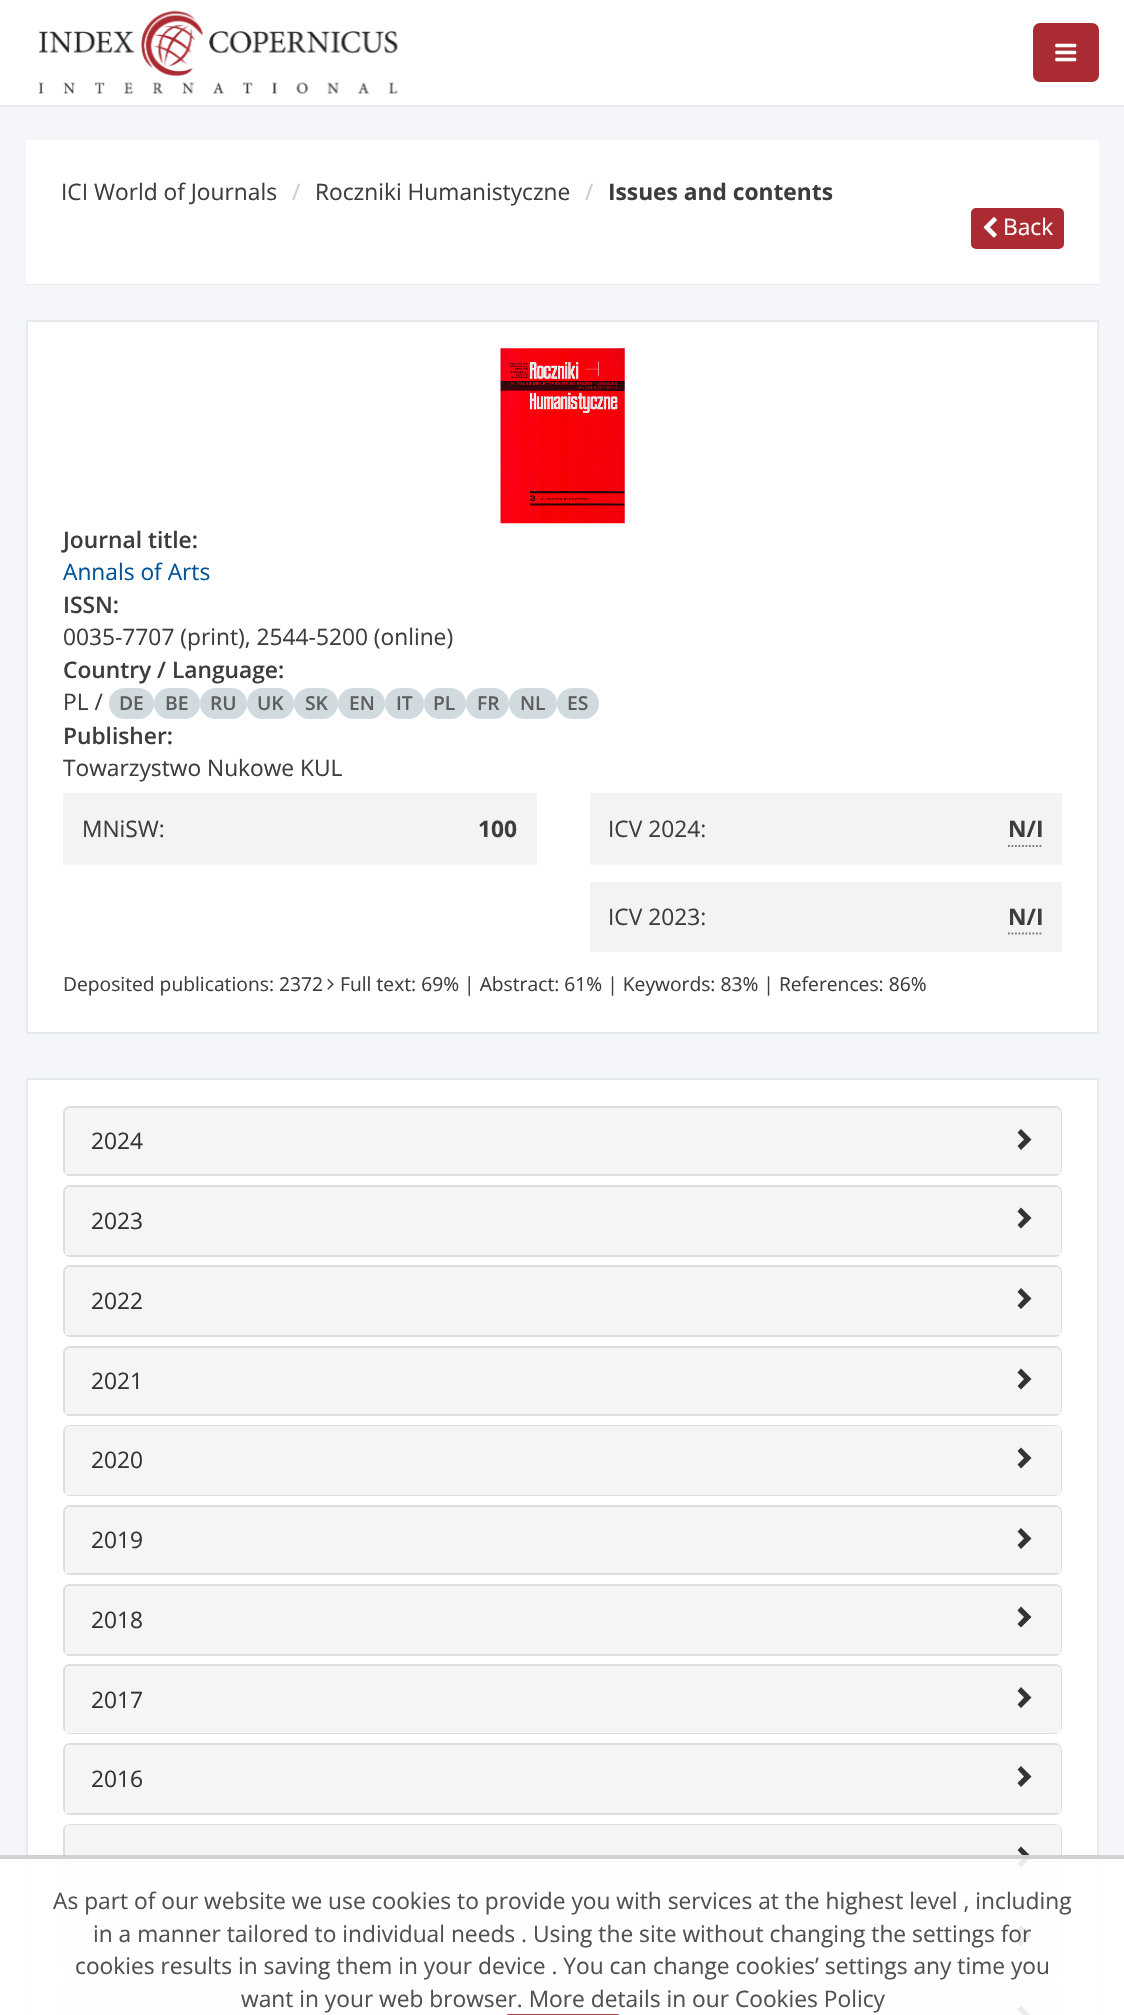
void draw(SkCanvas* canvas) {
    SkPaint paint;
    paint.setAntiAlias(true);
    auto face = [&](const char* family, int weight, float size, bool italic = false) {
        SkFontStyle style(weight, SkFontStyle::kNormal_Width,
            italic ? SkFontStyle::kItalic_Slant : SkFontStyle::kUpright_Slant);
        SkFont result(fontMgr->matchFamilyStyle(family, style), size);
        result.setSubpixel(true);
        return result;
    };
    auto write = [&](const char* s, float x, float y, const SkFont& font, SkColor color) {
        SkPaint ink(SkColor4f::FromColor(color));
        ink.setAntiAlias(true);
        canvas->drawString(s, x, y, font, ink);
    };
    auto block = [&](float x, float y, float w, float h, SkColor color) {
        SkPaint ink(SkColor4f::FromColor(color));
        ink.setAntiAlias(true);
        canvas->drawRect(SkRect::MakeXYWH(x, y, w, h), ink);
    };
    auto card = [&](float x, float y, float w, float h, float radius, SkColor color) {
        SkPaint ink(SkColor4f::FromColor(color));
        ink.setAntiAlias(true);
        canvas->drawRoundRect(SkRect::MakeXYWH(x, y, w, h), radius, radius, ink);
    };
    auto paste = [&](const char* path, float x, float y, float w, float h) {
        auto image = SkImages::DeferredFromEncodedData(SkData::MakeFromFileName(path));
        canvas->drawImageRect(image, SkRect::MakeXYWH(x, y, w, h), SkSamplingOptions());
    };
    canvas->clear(SkColorSetRGB(244, 246, 250));
    block(0, 0, 1124, 105, SK_ColorWHITE);
    block(0, 105, 1124, 2, SkColorSetRGB(231, 234, 236));
    paste("pic1.png", 38, 10, 360, 84);
    card(1033, 23, 66, 59, 7, SkColorSetRGB(170, 43, 49));
    paste("pic2.png", 1055, 43, 22, 19);
    block(26, 140, 1073, 144, SK_ColorWHITE);
    block(26, 284, 1073, 1, SkColorSetRGB(231, 234, 236));
    auto kFont1 = face("Open Sans", 400, 22.75f);
    write("ICI World of Journals", 61, 200, kFont1, SkColorSetRGB(61, 61, 61));
    write("/", 292, 200, kFont1, SkColorSetRGB(204, 204, 204));
    write("Roczniki Humanistyczne", 315, 200, kFont1, SkColorSetRGB(61, 61, 61));
    write("/", 585, 200, kFont1, SkColorSetRGB(204, 204, 204));
    auto kFont2 = face("Open Sans", 700, 22.75f);
    write("Issues and contents", 608, 200, kFont2, SkColorSetRGB(61, 61, 61));
    paint.setColor(SkColorSetRGB(170, 43, 49));
    canvas->drawRoundRect(SkRect::MakeXYWH(972, 209, 91, 39), 4, 4, paint);
    paint.setStyle(SkPaint::kStroke_Style);
    paint.setStrokeWidth(2);
    canvas->drawRoundRect(SkRect::MakeXYWH(972, 209, 91, 39), 4, 4, paint);
    paste("pic3.png", 983, 217, 14, 21);
    write("Back", 1003, 235, kFont1, SK_ColorWHITE);
    paint.setStyle(SkPaint::kFill_Style);
    paint.setColor(SK_ColorWHITE);
    canvas->drawRect(SkRect::MakeXYWH(27, 321, 1071, 712), paint);
    paint.setStyle(SkPaint::kStroke_Style);
    paint.setColor(SkColorSetRGB(231, 234, 236));
    canvas->drawRect(SkRect::MakeXYWH(27, 321, 1071, 712), paint);
    paste("pic4.png", 500, 348, 125, 176);
    auto kFont3 = face("Open Sans", 600, 22.75f);
    write("Journal title:", 63, 548, kFont3, SkColorSetRGB(61, 61, 61));
    write("Annals of Arts", 63, 580, kFont1, SkColorSetRGB(0, 83, 155));
    write("ISSN:", 63, 613, kFont3, SkColorSetRGB(61, 61, 61));
    write("0035-7707 (print), 2544-5200 (online)", 63, 645, kFont1, SkColorSetRGB(61, 61, 61));
    write("Country / Language:", 63, 678, kFont3, SkColorSetRGB(61, 61, 61));
    write("PL /", 63, 710, kFont1, SkColorSetRGB(61, 61, 61));
    card(109, 688, 45, 31, 15.5f, SkColorSetRGB(209, 218, 222));
    auto kFont4 = face("Open Sans", 600, 19.25f);
    write("DE", 119, 710, kFont4, SkColorSetRGB(94, 94, 94));
    card(154, 688, 46, 31, 15.5f, SkColorSetRGB(209, 218, 222));
    write("BE", 165, 710, kFont4, SkColorSetRGB(94, 94, 94));
    card(200, 688, 47, 31, 15.5f, SkColorSetRGB(209, 218, 222));
    write("RU", 210, 710, kFont4, SkColorSetRGB(94, 94, 94));
    card(247, 688, 47, 31, 15.5f, SkColorSetRGB(209, 218, 222));
    write("UK", 257, 710, kFont4, SkColorSetRGB(94, 94, 94));
    card(294, 688, 44, 31, 15.5f, SkColorSetRGB(209, 218, 222));
    write("SK", 305, 710, kFont4, SkColorSetRGB(94, 94, 94));
    card(338, 688, 47, 31, 15.5f, SkColorSetRGB(209, 218, 222));
    write("EN", 349, 710, kFont4, SkColorSetRGB(94, 94, 94));
    card(385, 688, 39, 31, 15.5f, SkColorSetRGB(209, 218, 222));
    write("IT", 396, 710, kFont4, SkColorSetRGB(94, 94, 94));
    card(424, 688, 42, 31, 15.5f, SkColorSetRGB(209, 218, 222));
    write("PL", 433, 710, kFont4, SkColorSetRGB(94, 94, 94));
    card(466, 688, 43, 31, 15.5f, SkColorSetRGB(209, 218, 222));
    write("FR", 477, 710, kFont4, SkColorSetRGB(94, 94, 94));
    card(509, 688, 48, 31, 15.5f, SkColorSetRGB(209, 218, 222));
    write("NL", 520, 710, kFont4, SkColorSetRGB(94, 94, 94));
    card(557, 688, 42, 31, 15.5f, SkColorSetRGB(209, 218, 222));
    write("ES", 567, 710, kFont4, SkColorSetRGB(94, 94, 94));
    write("Publisher:", 63, 744, kFont3, SkColorSetRGB(61, 61, 61));
    write("Towarzystwo Nukowe KUL", 63, 776, kFont1, SkColorSetRGB(61, 61, 61));
    block(63, 793, 474, 72, SkColorSetRGB(243, 243, 244));
    write("MNiSW:", 82, 837, kFont1, SkColorSetRGB(61, 61, 61));
    write("100", 478, 837, kFont2, SkColorSetRGB(61, 61, 61));
    block(590, 793, 472, 72, SkColorSetRGB(243, 243, 244));
    write("ICV 2024:", 608, 837, kFont1, SkColorSetRGB(61, 61, 61));
    paint.setStrokeWidth(1.8f);
    paint.setColor(SkColorSetRGB(119, 119, 119));
    paint.setPathEffect(SkDashPathEffect::Make({{1.75f, 1.75f}}, 0));
    canvas->drawPath(SkPathBuilder().moveTo(1008, 846).lineTo(1043, 846).detach(), paint);
    paint.setPathEffect(nullptr);
    write("N/I", 1008, 837, kFont2, SkColorSetRGB(61, 61, 61));
    block(590, 882, 472, 70, SkColorSetRGB(243, 243, 244));
    write("ICV 2023:", 608, 925, kFont1, SkColorSetRGB(61, 61, 61));
    paint.setPathEffect(SkDashPathEffect::Make({{1.75f, 1.75f}}, 0));
    canvas->drawPath(SkPathBuilder().moveTo(1008, 933.5f).lineTo(1043, 933.5f).detach(), paint);
    paint.setPathEffect(nullptr);
    write("N/I", 1008, 925, kFont2, SkColorSetRGB(61, 61, 61));
    auto kFont5 = face("Open Sans", 400, 19.25f);
    write("Deposited publications: 2372", 63, 991, kFont5, SkColorSetRGB(61, 61, 61));
    paste("pic5.png", 327, 979, 7, 11);
    write("Full text: 69% | Abstract: 61% | Keywords: 83% | References: 86%", 340, 991, kFont5, SkColorSetRGB(61, 61, 61));
    paint.setStyle(SkPaint::kFill_Style);
    paint.setColor(SK_ColorWHITE);
    canvas->drawRect(SkRect::MakeXYWH(27, 1079, 1071, 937), paint);
    paint.setStyle(SkPaint::kStroke_Style);
    paint.setStrokeWidth(2);
    paint.setColor(SkColorSetRGB(231, 234, 236));
    canvas->drawRect(SkRect::MakeXYWH(27, 1079, 1071, 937), paint);
    paint.setColor(SkColorSetRGB(221, 221, 221));
    canvas->drawRoundRect(SkRect::MakeXYWH(64, 1107, 997, 68), 6, 6, paint);
    paint.setStyle(SkPaint::kFill_Style);
    paint.setColor(SkColorSetRGB(245, 245, 245));
    canvas->drawPath(SkPathBuilder().moveTo(70, 1108).lineTo(1056, 1108).cubicTo(1059, 1108, 1061, 1110, 1061, 1113).lineTo(1061, 1174).lineTo(65, 1174).lineTo(65, 1113).cubicTo(65, 1110, 67, 1108, 70, 1108).close().detach(), paint);
    write("2024", 91, 1149, kFont1, SkColorSetRGB(51, 51, 51));
    paint.setColor(SkColorSetRGB(51, 51, 51));
    canvas->drawPath(SkPathBuilder().moveTo(1031.5f, 1139.5f).lineTo(1021, 1150).lineTo(1017.5f, 1146).lineTo(1024, 1139.5f).lineTo(1017.5f, 1132.5f).lineTo(1021, 1129).close().detach(), paint);
    paint.setStyle(SkPaint::kStroke_Style);
    paint.setColor(SkColorSetRGB(221, 221, 221));
    canvas->drawRoundRect(SkRect::MakeXYWH(64, 1186, 997, 70), 6, 6, paint);
    paint.setStyle(SkPaint::kFill_Style);
    paint.setColor(SkColorSetRGB(245, 245, 245));
    canvas->drawPath(SkPathBuilder().moveTo(70, 1187).lineTo(1056, 1187).cubicTo(1059, 1187, 1061, 1189, 1061, 1192).lineTo(1061, 1255).lineTo(65, 1255).lineTo(65, 1192).cubicTo(65, 1189, 67, 1187, 70, 1187).close().detach(), paint);
    write("2023", 91, 1229, kFont1, SkColorSetRGB(51, 51, 51));
    paint.setColor(SkColorSetRGB(51, 51, 51));
    canvas->drawPath(SkPathBuilder().moveTo(1031.5f, 1218).lineTo(1021, 1228.5f).lineTo(1017.5f, 1225).lineTo(1024, 1218).lineTo(1017.5f, 1211.5f).lineTo(1021, 1207.5f).close().detach(), paint);
    paint.setStyle(SkPaint::kStroke_Style);
    paint.setColor(SkColorSetRGB(221, 221, 221));
    canvas->drawRoundRect(SkRect::MakeXYWH(64, 1266, 997, 70), 6, 6, paint);
    paint.setStyle(SkPaint::kFill_Style);
    paint.setColor(SkColorSetRGB(245, 245, 245));
    canvas->drawPath(SkPathBuilder().moveTo(70, 1267).lineTo(1056, 1267).cubicTo(1059, 1267, 1061, 1269, 1061, 1272).lineTo(1061, 1335).lineTo(65, 1335).lineTo(65, 1272).cubicTo(65, 1269, 67, 1267, 70, 1267).close().detach(), paint);
    write("2022", 91, 1309, kFont1, SkColorSetRGB(51, 51, 51));
    paint.setColor(SkColorSetRGB(51, 51, 51));
    canvas->drawPath(SkPathBuilder().moveTo(1031.5f, 1298.5f).lineTo(1021, 1309).lineTo(1017.5f, 1305.5f).lineTo(1024, 1298.5f).lineTo(1017.5f, 1292).lineTo(1021, 1288).close().detach(), paint);
    paint.setStyle(SkPaint::kStroke_Style);
    paint.setColor(SkColorSetRGB(221, 221, 221));
    canvas->drawRoundRect(SkRect::MakeXYWH(64, 1347, 997, 68), 6, 6, paint);
    paint.setStyle(SkPaint::kFill_Style);
    paint.setColor(SkColorSetRGB(245, 245, 245));
    canvas->drawPath(SkPathBuilder().moveTo(70, 1348).lineTo(1056, 1348).cubicTo(1059, 1348, 1061, 1350, 1061, 1353).lineTo(1061, 1414).lineTo(65, 1414).lineTo(65, 1353).cubicTo(65, 1350, 67, 1348, 70, 1348).close().detach(), paint);
    write("2021", 91, 1389, kFont1, SkColorSetRGB(51, 51, 51));
    paint.setColor(SkColorSetRGB(51, 51, 51));
    canvas->drawPath(SkPathBuilder().moveTo(1031.5f, 1379).lineTo(1021, 1389.5f).lineTo(1017.5f, 1386).lineTo(1024, 1379).lineTo(1017.5f, 1372.5f).lineTo(1021, 1368.5f).close().detach(), paint);
    paint.setStyle(SkPaint::kStroke_Style);
    paint.setColor(SkColorSetRGB(221, 221, 221));
    canvas->drawRoundRect(SkRect::MakeXYWH(64, 1426, 997, 69), 6, 6, paint);
    paint.setStyle(SkPaint::kFill_Style);
    paint.setColor(SkColorSetRGB(245, 245, 245));
    canvas->drawPath(SkPathBuilder().moveTo(70, 1426).lineTo(1056, 1426).cubicTo(1059, 1426, 1061, 1428, 1061, 1431).lineTo(1061, 1495).lineTo(65, 1495).lineTo(65, 1431).cubicTo(65, 1428, 67, 1426, 70, 1426).close().detach(), paint);
    write("2020", 91, 1468, kFont1, SkColorSetRGB(51, 51, 51));
    paint.setColor(SkColorSetRGB(51, 51, 51));
    canvas->drawPath(SkPathBuilder().moveTo(1031.5f, 1458).lineTo(1021, 1468.5f).lineTo(1017.5f, 1464.5f).lineTo(1024, 1458).lineTo(1017.5f, 1451).lineTo(1021, 1447.5f).close().detach(), paint);
    paint.setStyle(SkPaint::kStroke_Style);
    paint.setColor(SkColorSetRGB(221, 221, 221));
    canvas->drawRoundRect(SkRect::MakeXYWH(64, 1506, 997, 68), 6, 6, paint);
    paint.setStyle(SkPaint::kFill_Style);
    paint.setColor(SkColorSetRGB(245, 245, 245));
    canvas->drawPath(SkPathBuilder().moveTo(70, 1507).lineTo(1056, 1507).cubicTo(1059, 1507, 1061, 1509, 1061, 1512).lineTo(1061, 1573).lineTo(65, 1573).lineTo(65, 1512).cubicTo(65, 1509, 67, 1507, 70, 1507).close().detach(), paint);
    write("2019", 91, 1548, kFont1, SkColorSetRGB(51, 51, 51));
    paint.setColor(SkColorSetRGB(51, 51, 51));
    canvas->drawPath(SkPathBuilder().moveTo(1031.5f, 1538.5f).lineTo(1021, 1549).lineTo(1017.5f, 1545).lineTo(1024, 1538.5f).lineTo(1017.5f, 1531.5f).lineTo(1021, 1528).close().detach(), paint);
    paint.setStyle(SkPaint::kStroke_Style);
    paint.setColor(SkColorSetRGB(221, 221, 221));
    canvas->drawRoundRect(SkRect::MakeXYWH(64, 1585, 997, 70), 6, 6, paint);
    paint.setStyle(SkPaint::kFill_Style);
    paint.setColor(SkColorSetRGB(245, 245, 245));
    canvas->drawPath(SkPathBuilder().moveTo(70, 1586).lineTo(1056, 1586).cubicTo(1059, 1586, 1061, 1588, 1061, 1591).lineTo(1061, 1654).lineTo(65, 1654).lineTo(65, 1591).cubicTo(65, 1588, 67, 1586, 70, 1586).close().detach(), paint);
    write("2018", 91, 1628, kFont1, SkColorSetRGB(51, 51, 51));
    paint.setColor(SkColorSetRGB(51, 51, 51));
    canvas->drawPath(SkPathBuilder().moveTo(1031.5f, 1617).lineTo(1021, 1627.5f).lineTo(1017.5f, 1624).lineTo(1024, 1617).lineTo(1017.5f, 1610.5f).lineTo(1021, 1606.5f).close().detach(), paint);
    paint.setStyle(SkPaint::kStroke_Style);
    paint.setColor(SkColorSetRGB(221, 221, 221));
    canvas->drawRoundRect(SkRect::MakeXYWH(64, 1665, 997, 68), 6, 6, paint);
    paint.setStyle(SkPaint::kFill_Style);
    paint.setColor(SkColorSetRGB(245, 245, 245));
    canvas->drawPath(SkPathBuilder().moveTo(70, 1666).lineTo(1056, 1666).cubicTo(1059, 1666, 1061, 1668, 1061, 1671).lineTo(1061, 1733).lineTo(65, 1733).lineTo(65, 1671).cubicTo(65, 1668, 67, 1666, 70, 1666).close().detach(), paint);
    write("2017", 91, 1708, kFont1, SkColorSetRGB(51, 51, 51));
    paint.setColor(SkColorSetRGB(51, 51, 51));
    canvas->drawPath(SkPathBuilder().moveTo(1031.5f, 1697.5f).lineTo(1021, 1708).lineTo(1017.5f, 1704.5f).lineTo(1024, 1697.5f).lineTo(1017.5f, 1691).lineTo(1021, 1687).close().detach(), paint);
    paint.setStyle(SkPaint::kStroke_Style);
    paint.setColor(SkColorSetRGB(221, 221, 221));
    canvas->drawRoundRect(SkRect::MakeXYWH(64, 1744, 997, 70), 6, 6, paint);
    paint.setStyle(SkPaint::kFill_Style);
    paint.setColor(SkColorSetRGB(245, 245, 245));
    canvas->drawPath(SkPathBuilder().moveTo(70, 1745).lineTo(1056, 1745).cubicTo(1059, 1745, 1061, 1747, 1061, 1750).lineTo(1061, 1813).lineTo(65, 1813).lineTo(65, 1750).cubicTo(65, 1747, 67, 1745, 70, 1745).close().detach(), paint);
    write("2016", 91, 1787, kFont1, SkColorSetRGB(51, 51, 51));
    paint.setColor(SkColorSetRGB(51, 51, 51));
    canvas->drawPath(SkPathBuilder().moveTo(1031.5f, 1776.5f).lineTo(1021, 1787).lineTo(1017.5f, 1783).lineTo(1024, 1776.5f).lineTo(1017.5f, 1769.5f).lineTo(1021, 1766).close().detach(), paint);
    paint.setStyle(SkPaint::kStroke_Style);
    paint.setColor(SkColorSetRGB(221, 221, 221));
    canvas->drawRoundRect(SkRect::MakeXYWH(64, 1825, 997, 68), 6, 6, paint);
    paint.setStyle(SkPaint::kFill_Style);
    paint.setColor(SkColorSetRGB(245, 245, 245));
    canvas->drawPath(SkPathBuilder().moveTo(70, 1825).lineTo(1056, 1825).cubicTo(1059, 1825, 1061, 1827, 1061, 1830).lineTo(1061, 1892).lineTo(65, 1892).lineTo(65, 1830).cubicTo(65, 1827, 67, 1825, 70, 1825).close().detach(), paint);
    paint.setColor(SkColorSetRGB(51, 51, 51));
    canvas->drawPath(SkPathBuilder().moveTo(1031.5f, 1857).lineTo(1021, 1867.5f).lineTo(1017.5f, 1863.5f).lineTo(1024, 1857).lineTo(1017.5f, 1850).lineTo(1021, 1846.5f).close().detach(), paint);
    paint.setStyle(SkPaint::kStroke_Style);
    paint.setColor(SkColorSetRGB(221, 221, 221));
    canvas->drawRoundRect(SkRect::MakeXYWH(64, 1903, 997, 70), 6, 6, paint);
    paint.setStyle(SkPaint::kFill_Style);
    paint.setColor(SkColorSetRGB(245, 245, 245));
    canvas->drawPath(SkPathBuilder().moveTo(70, 1904).lineTo(1056, 1904).cubicTo(1059, 1904, 1061, 1906, 1061, 1909).lineTo(1061, 1972).lineTo(65, 1972).lineTo(65, 1909).cubicTo(65, 1906, 67, 1904, 70, 1904).close().detach(), paint);
    paint.setColor(SkColorSetRGB(51, 51, 51));
    canvas->drawPath(SkPathBuilder().moveTo(1031.5f, 1935.5f).lineTo(1021, 1946).lineTo(1017.5f, 1942.5f).lineTo(1024, 1935.5f).lineTo(1017.5f, 1929).lineTo(1021, 1925).close().detach(), paint);
    paint.setStyle(SkPaint::kStroke_Style);
    paint.setColor(SkColorSetRGB(221, 221, 221));
    canvas->drawRoundRect(SkRect::MakeXYWH(64, 1984, 997, 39), 6, 6, paint);
    paint.setStyle(SkPaint::kFill_Style);
    paint.setColor(SkColorSetRGB(245, 245, 245));
    canvas->drawPath(SkPathBuilder().moveTo(70, 1985).lineTo(1056, 1985).cubicTo(1059, 1985, 1061, 1987, 1061, 1990).lineTo(1061, 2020).lineTo(65, 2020).lineTo(65, 1990).cubicTo(65, 1987, 67, 1985, 70, 1985).close().detach(), paint);
    paste("pic6.png", 1017, 2005, 14, 10);
    block(0, 1855, 1124, 160, SkColorSetARGB(230, 255, 255, 255));
    block(0, 1855, 1124, 4, SkColorSetARGB(230, 204, 204, 204));
    write("As part of our website we use cookies to provide you with services at the highest level , including", 53, 1909, kFont1, SkColorSetRGB(80, 80, 80));
    write("in a manner tailored to individual needs . Using the site without changing the settings for", 93, 1942, kFont1, SkColorSetRGB(80, 80, 80));
    write("cookies results in saving them in your device . You can change cookies’ settings any time you", 75, 1974, kFont1, SkColorSetRGB(80, 80, 80));
    write("want in your web browser. More details in our Cookies Policy", 241, 2007, kFont1, SkColorSetRGB(80, 80, 80));
    card(506, 2014, 114, 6, 5, SkColorSetRGB(178, 63, 69));
}
